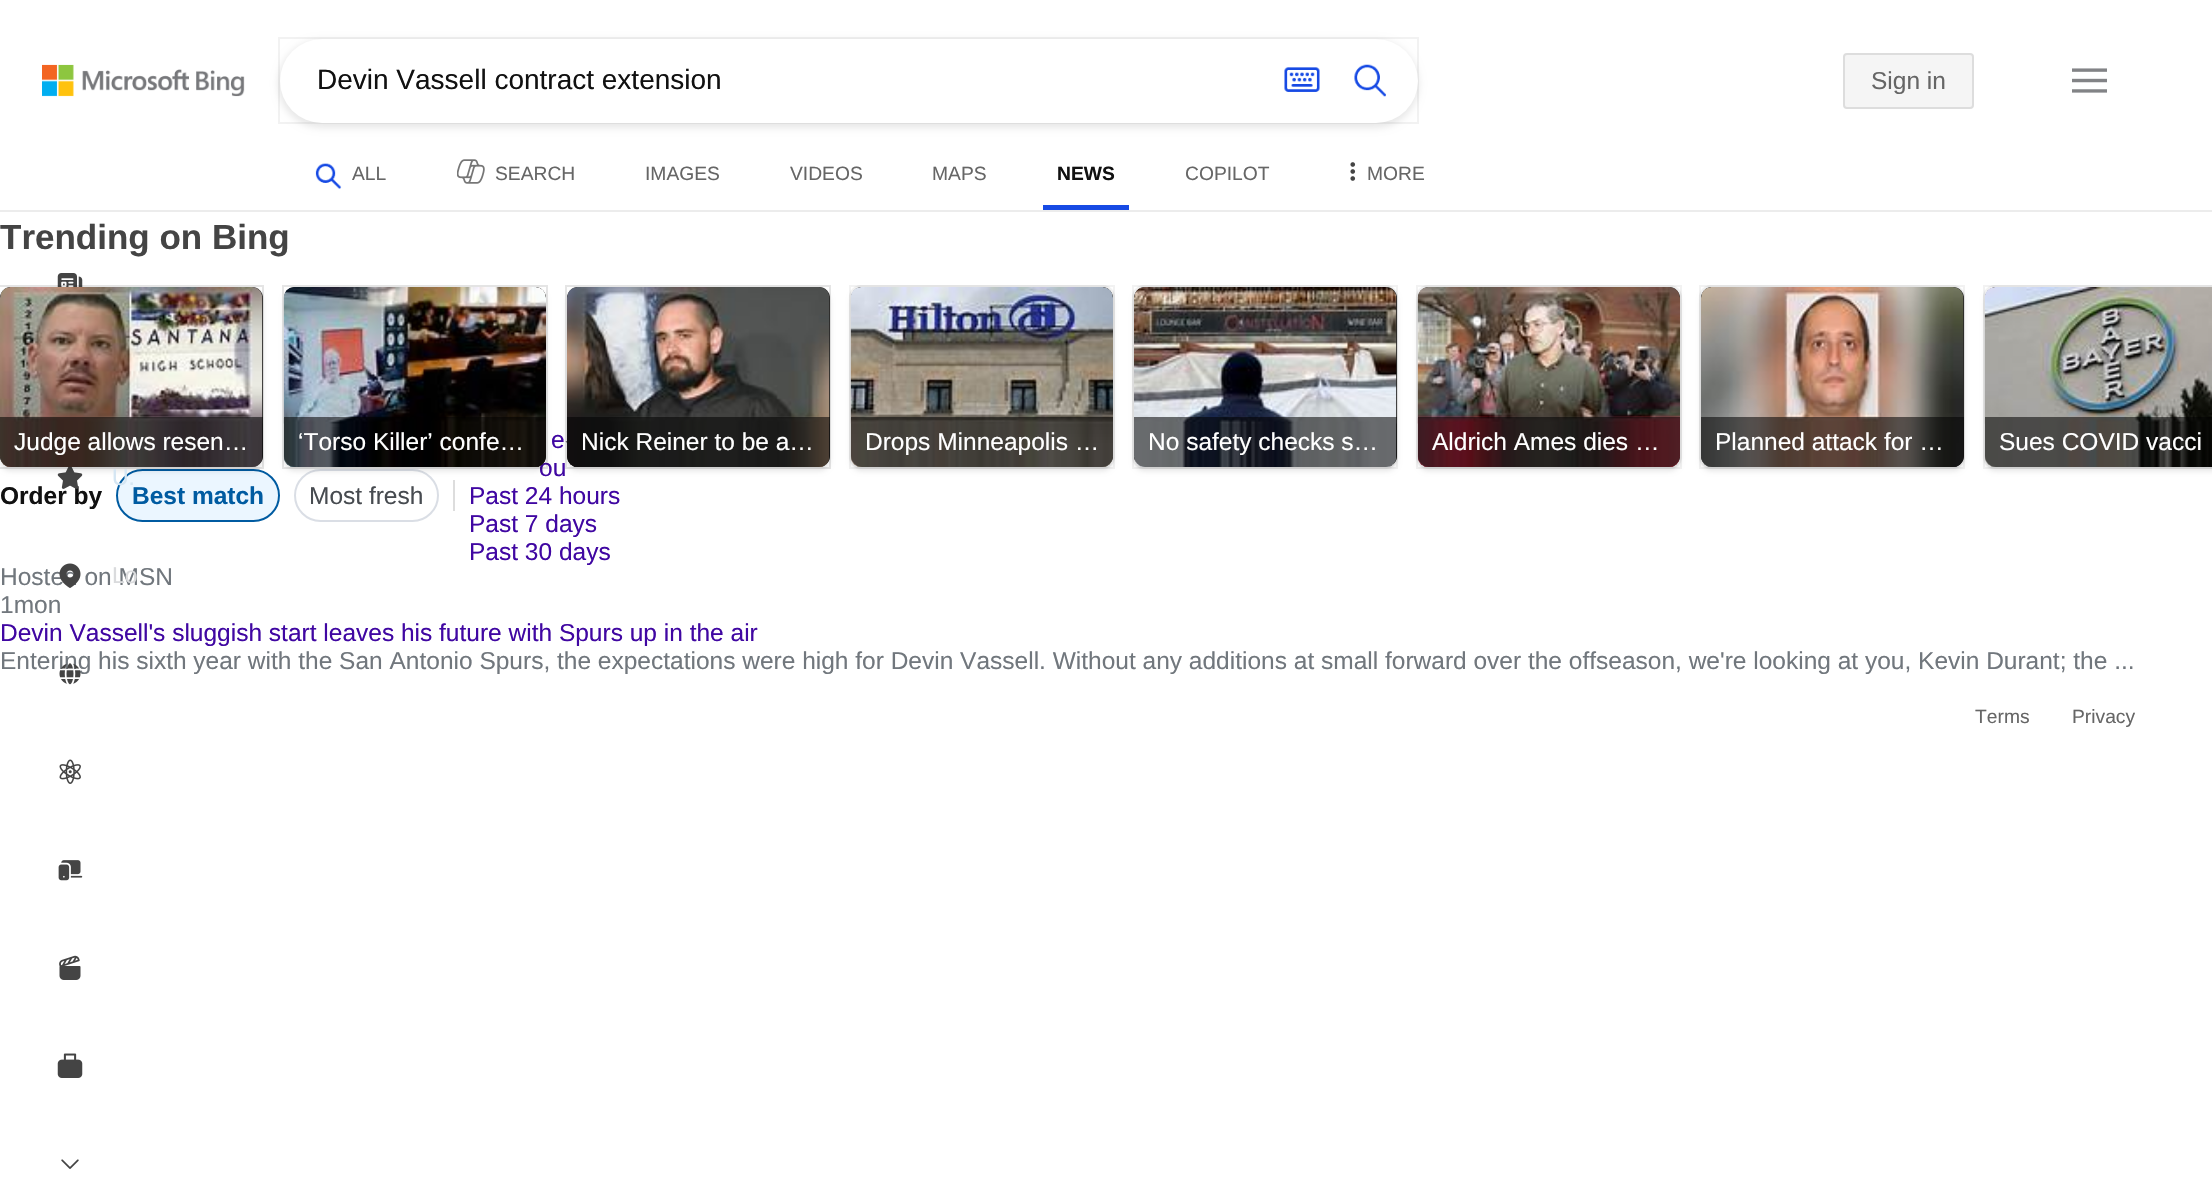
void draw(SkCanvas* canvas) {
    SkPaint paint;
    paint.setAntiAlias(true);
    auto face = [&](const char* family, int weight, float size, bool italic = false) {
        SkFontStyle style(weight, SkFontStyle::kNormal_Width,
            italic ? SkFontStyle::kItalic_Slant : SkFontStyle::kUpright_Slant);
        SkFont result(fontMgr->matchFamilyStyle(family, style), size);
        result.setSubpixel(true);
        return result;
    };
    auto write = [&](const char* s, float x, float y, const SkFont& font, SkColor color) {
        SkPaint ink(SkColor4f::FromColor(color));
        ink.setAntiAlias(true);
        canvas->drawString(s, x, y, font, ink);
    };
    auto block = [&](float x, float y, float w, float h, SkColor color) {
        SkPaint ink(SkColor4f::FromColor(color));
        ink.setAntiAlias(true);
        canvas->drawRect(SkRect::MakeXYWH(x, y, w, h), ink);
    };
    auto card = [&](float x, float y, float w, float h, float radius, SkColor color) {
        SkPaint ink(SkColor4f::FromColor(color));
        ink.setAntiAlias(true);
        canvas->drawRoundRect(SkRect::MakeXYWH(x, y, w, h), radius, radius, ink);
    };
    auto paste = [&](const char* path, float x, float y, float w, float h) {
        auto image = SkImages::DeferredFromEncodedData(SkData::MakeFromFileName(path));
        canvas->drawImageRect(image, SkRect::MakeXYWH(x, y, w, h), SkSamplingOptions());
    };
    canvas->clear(SK_ColorWHITE);
    block(0, 210, 2212, 2, SkColorSetRGB(236, 236, 236));
    paste("pic1.png", 42, 64, 203, 33);
    paint.setColor(SkColorSetARGB(23, 0, 0, 0));
    paint.setMaskFilter(SkMaskFilter::MakeBlur(kNormal_SkBlurStyle, 3.5f));
    canvas->drawRoundRect(SkRect::MakeXYWH(278, 40, 1141, 88), 44, 44, paint);
    paint.setMaskFilter(nullptr);
    paint.setStyle(SkPaint::kStroke_Style);
    paint.setStrokeWidth(2);
    paint.setColor(SkColorSetARGB(13, 0, 0, 0));
    canvas->drawRect(SkRect::MakeXYWH(279, 38, 1139, 85), paint);
    card(280, 39, 1138, 84, 42, SK_ColorWHITE);
    auto kFont1 = face("Liberation Sans", 400, 28);
    write("Devin Vassell contract extension", 317, 89, kFont1, SkColorSetRGB(17, 17, 17));
    paste("pic2.png", 1284, 67, 36, 25);
    paste("pic3.png", 1354, 64, 32, 33);
    paint.setStyle(SkPaint::kFill_Style);
    paint.setColor(SkColorSetRGB(245, 245, 245));
    canvas->drawRoundRect(SkRect::MakeXYWH(1844, 54, 129, 54), 3, 3, paint);
    paint.setStyle(SkPaint::kStroke_Style);
    paint.setColor(SkColorSetRGB(221, 221, 221));
    canvas->drawRoundRect(SkRect::MakeXYWH(1844, 54, 129, 54), 3, 3, paint);
    auto kFont2 = face("Liberation Sans", 400, 24.5f);
    write("Sign in", 1871, 89, kFont2, SkColorSetRGB(102, 102, 102));
    paste("pic4.png", 2072, 68, 35, 25);
    paste("pic5.png", 315, 163, 27, 26);
    auto kFont3 = face("Liberation Sans", 400, 19.25f);
    write("ALL", 352, 180, kFont3, SkColorSetRGB(102, 102, 102));
    paste("pic6.png", 457, 159, 28, 25);
    write("SEARCH", 495, 180, kFont3, SkColorSetRGB(102, 102, 102));
    write("IMAGES", 645, 180, kFont3, SkColorSetRGB(102, 102, 102));
    write("VIDEOS", 790, 180, kFont3, SkColorSetRGB(102, 102, 102));
    write("MAPS", 932, 180, kFont3, SkColorSetRGB(102, 102, 102));
    auto kFont4 = face("Liberation Sans", 700, 19.25f);
    write("NEWS", 1057, 180, kFont4, SkColorSetRGB(17, 17, 17));
    block(1043, 205, 86, 5, SkColorSetRGB(23, 74, 228));
    write("COPILOT", 1185, 180, kFont3, SkColorSetRGB(102, 102, 102));
    paste("pic7.png", 1350, 162, 6, 19);
    write("MORE", 1367, 180, kFont3, SkColorSetRGB(102, 102, 102));
    auto kFont5 = face("Liberation Sans", 700, 35);
    write("Trending on Bing", 0, 249, kFont5, SkColorSetRGB(68, 68, 68));
    paste("pic25.png", 57, 273, 26, 14);
    auto kFont6 = face("Liberation Sans", 700, 24.5f);
    write("Order by", 0, 504, kFont6, SkColorSetRGB(17, 17, 17));
    paste("pic26.png", 57, 467, 26, 22);
    paint.setColor(SkColorSetARGB(13, 0, 0, 0));
    canvas->drawRect(SkRect::MakeXYWH(-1, 286, 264, 182), paint);
    paint.setStyle(SkPaint::kFill_Style);
    paint.setColor(SkColorSetRGB(235, 246, 255));
    canvas->drawRoundRect(SkRect::MakeXYWH(117, 470, 162, 51), 25.5f, 25.5f, paint);
    paint.setStyle(SkPaint::kStroke_Style);
    paint.setColor(SkColorSetRGB(0, 91, 161));
    canvas->drawRoundRect(SkRect::MakeXYWH(117, 470, 162, 51), 25.5f, 25.5f, paint);
    paint.setStyle(SkPaint::kFill_Style);
    paint.setColor(SkColorSetARGB(26, 0, 0, 0));
    paint.setMaskFilter(SkMaskFilter::MakeBlur(kNormal_SkBlurStyle, 2.5f));
    canvas->drawRoundRect(SkRect::MakeXYWH(0, 291, 263, 180), 11, 11, paint);
    paint.setMaskFilter(nullptr);
    paint.setStyle(SkPaint::kStroke_Style);
    paint.setColor(SkColorSetARGB(13, 0, 0, 0));
    canvas->drawRect(SkRect::MakeXYWH(-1, 286, 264, 182), paint);
    card(0, 287, 263, 180, 11, SkColorSetRGB(41, 40, 39));
    paste("pic9.png", 0, 418, 263, 49);
    paste("pic8.png", 0, 287, 263, 137);
    paint.setStyle(SkPaint::kFill_Style);
    paint.setColor(SkColorSetARGB(140, 0, 0, 0));
    canvas->drawPath(SkPathBuilder().moveTo(0, 417).lineTo(263, 417).lineTo(263, 456).cubicTo(263, 462, 258, 467, 252, 467).lineTo(11, 467).cubicTo(5, 467, 0, 462, 0, 456).close().detach(), paint);
    write("Judge allows resen…", 14, 450, kFont2, SK_ColorWHITE);
    write("ou", 539, 476, kFont2, SkColorSetRGB(64, 7, 162));
    paint.setStyle(SkPaint::kStroke_Style);
    paint.setColor(SkColorSetARGB(13, 0, 0, 0));
    canvas->drawRect(SkRect::MakeXYWH(283, 286, 264, 182), paint);
    paint.setColor(SkColorSetRGB(218, 222, 229));
    canvas->drawRoundRect(SkRect::MakeXYWH(295, 470, 143, 51), 25.5f, 25.5f, paint);
    paint.setStyle(SkPaint::kFill_Style);
    paint.setColor(SkColorSetARGB(26, 0, 0, 0));
    paint.setMaskFilter(SkMaskFilter::MakeBlur(kNormal_SkBlurStyle, 2.5f));
    canvas->drawRoundRect(SkRect::MakeXYWH(284, 291, 262, 180), 11, 11, paint);
    paint.setMaskFilter(nullptr);
    paint.setStyle(SkPaint::kStroke_Style);
    paint.setColor(SkColorSetARGB(13, 0, 0, 0));
    canvas->drawRect(SkRect::MakeXYWH(283, 286, 264, 182), paint);
    card(284, 287, 262, 180, 11, SkColorSetRGB(41, 40, 39));
    paste("pic11.png", 283, 418, 263, 49);
    paste("pic10.png", 283, 287, 263, 137);
    paint.setStyle(SkPaint::kFill_Style);
    paint.setColor(SkColorSetARGB(140, 0, 0, 0));
    canvas->drawPath(SkPathBuilder().moveTo(284, 417).lineTo(546, 417).lineTo(546, 456).cubicTo(546, 462, 541, 467, 535, 467).lineTo(295, 467).cubicTo(289, 467, 284, 462, 284, 456).close().detach(), paint);
    write("‘Torso Killer’ confe…", 298, 450, kFont2, SK_ColorWHITE);
    paste("pic24.png", 565, 441, 2, 3);
    paint.setStyle(SkPaint::kStroke_Style);
    paint.setColor(SkColorSetARGB(13, 0, 0, 0));
    canvas->drawRect(SkRect::MakeXYWH(566, 286, 264, 182), paint);
    paint.setStyle(SkPaint::kFill_Style);
    paint.setColor(SkColorSetARGB(26, 0, 0, 0));
    paint.setMaskFilter(SkMaskFilter::MakeBlur(kNormal_SkBlurStyle, 2.5f));
    canvas->drawRoundRect(SkRect::MakeXYWH(567, 291, 263, 180), 11, 11, paint);
    paint.setMaskFilter(nullptr);
    paint.setStyle(SkPaint::kStroke_Style);
    paint.setColor(SkColorSetARGB(13, 0, 0, 0));
    canvas->drawRect(SkRect::MakeXYWH(566, 286, 264, 182), paint);
    card(567, 287, 263, 180, 11, SkColorSetRGB(41, 40, 39));
    paste("pic13.png", 567, 418, 263, 49);
    paste("pic12.png", 567, 287, 263, 137);
    paint.setStyle(SkPaint::kFill_Style);
    paint.setColor(SkColorSetARGB(140, 0, 0, 0));
    canvas->drawPath(SkPathBuilder().moveTo(567, 417).lineTo(830, 417).lineTo(830, 456).cubicTo(830, 462, 825, 467, 819, 467).lineTo(578, 467).cubicTo(572, 467, 567, 462, 567, 456).close().detach(), paint);
    write("Nick Reiner to be a…", 581, 450, kFont2, SK_ColorWHITE);
    paint.setStyle(SkPaint::kStroke_Style);
    paint.setColor(SkColorSetRGB(242, 242, 242));
    canvas->drawRoundRect(SkRect::MakeXYWH(850, 286, 264, 182), 11, 11, paint);
    paint.setStyle(SkPaint::kFill_Style);
    paint.setColor(SkColorSetARGB(26, 0, 0, 0));
    paint.setMaskFilter(SkMaskFilter::MakeBlur(kNormal_SkBlurStyle, 2.5f));
    canvas->drawRoundRect(SkRect::MakeXYWH(851, 291, 262, 180), 11, 11, paint);
    paint.setMaskFilter(nullptr);
    paint.setStyle(SkPaint::kStroke_Style);
    paint.setColor(SkColorSetARGB(13, 0, 0, 0));
    canvas->drawRect(SkRect::MakeXYWH(850, 286, 264, 182), paint);
    card(851, 287, 262, 180, 11, SkColorSetRGB(41, 40, 39));
    paste("pic15.png", 850, 418, 263, 49);
    paste("pic14.png", 850, 287, 263, 137);
    paint.setStyle(SkPaint::kFill_Style);
    paint.setColor(SkColorSetARGB(140, 0, 0, 0));
    canvas->drawPath(SkPathBuilder().moveTo(851, 417).lineTo(1113, 417).lineTo(1113, 456).cubicTo(1113, 462, 1108, 467, 1102, 467).lineTo(862, 467).cubicTo(856, 467, 851, 462, 851, 456).close().detach(), paint);
    write("Drops Minneapolis …", 865, 450, kFont2, SK_ColorWHITE);
    paint.setStyle(SkPaint::kStroke_Style);
    paint.setColor(SkColorSetRGB(242, 242, 242));
    canvas->drawRoundRect(SkRect::MakeXYWH(1133, 286, 264, 182), 11, 11, paint);
    paint.setStyle(SkPaint::kFill_Style);
    paint.setColor(SkColorSetARGB(26, 0, 0, 0));
    paint.setMaskFilter(SkMaskFilter::MakeBlur(kNormal_SkBlurStyle, 2.5f));
    canvas->drawRoundRect(SkRect::MakeXYWH(1134, 291, 263, 180), 11, 11, paint);
    paint.setMaskFilter(nullptr);
    paint.setStyle(SkPaint::kStroke_Style);
    paint.setColor(SkColorSetARGB(13, 0, 0, 0));
    canvas->drawRect(SkRect::MakeXYWH(1133, 286, 264, 182), paint);
    card(1134, 287, 263, 180, 11, SkColorSetRGB(41, 40, 39));
    paste("pic17.png", 1134, 418, 263, 49);
    paste("pic16.png", 1134, 287, 263, 137);
    paint.setStyle(SkPaint::kFill_Style);
    paint.setColor(SkColorSetARGB(140, 0, 0, 0));
    canvas->drawPath(SkPathBuilder().moveTo(1134, 417).lineTo(1397, 417).lineTo(1397, 456).cubicTo(1397, 462, 1392, 467, 1386, 467).lineTo(1145, 467).cubicTo(1139, 467, 1134, 462, 1134, 456).close().detach(), paint);
    write("No safety checks s…", 1148, 450, kFont2, SK_ColorWHITE);
    paint.setStyle(SkPaint::kStroke_Style);
    paint.setColor(SkColorSetRGB(242, 242, 242));
    canvas->drawRoundRect(SkRect::MakeXYWH(1417, 286, 264, 182), 11, 11, paint);
    paint.setStyle(SkPaint::kFill_Style);
    paint.setColor(SkColorSetARGB(26, 0, 0, 0));
    paint.setMaskFilter(SkMaskFilter::MakeBlur(kNormal_SkBlurStyle, 2.5f));
    canvas->drawRoundRect(SkRect::MakeXYWH(1418, 291, 262, 180), 11, 11, paint);
    paint.setMaskFilter(nullptr);
    paint.setStyle(SkPaint::kStroke_Style);
    paint.setColor(SkColorSetARGB(13, 0, 0, 0));
    canvas->drawRect(SkRect::MakeXYWH(1417, 286, 264, 182), paint);
    card(1418, 287, 262, 180, 11, SkColorSetRGB(41, 40, 39));
    paste("pic19.png", 1417, 418, 263, 49);
    paste("pic18.png", 1417, 287, 263, 137);
    paint.setStyle(SkPaint::kFill_Style);
    paint.setColor(SkColorSetARGB(140, 0, 0, 0));
    canvas->drawPath(SkPathBuilder().moveTo(1418, 417).lineTo(1680, 417).lineTo(1680, 456).cubicTo(1680, 462, 1675, 467, 1669, 467).lineTo(1429, 467).cubicTo(1423, 467, 1418, 462, 1418, 456).close().detach(), paint);
    write("Aldrich Ames dies …", 1432, 450, kFont2, SK_ColorWHITE);
    paint.setStyle(SkPaint::kStroke_Style);
    paint.setColor(SkColorSetRGB(242, 242, 242));
    canvas->drawRoundRect(SkRect::MakeXYWH(1700, 286, 264, 182), 11, 11, paint);
    paint.setStyle(SkPaint::kFill_Style);
    paint.setColor(SkColorSetARGB(26, 0, 0, 0));
    paint.setMaskFilter(SkMaskFilter::MakeBlur(kNormal_SkBlurStyle, 2.5f));
    canvas->drawRoundRect(SkRect::MakeXYWH(1701, 291, 263, 180), 11, 11, paint);
    paint.setMaskFilter(nullptr);
    paint.setStyle(SkPaint::kStroke_Style);
    paint.setColor(SkColorSetARGB(13, 0, 0, 0));
    canvas->drawRect(SkRect::MakeXYWH(1700, 286, 264, 182), paint);
    card(1701, 287, 263, 180, 11, SkColorSetRGB(41, 40, 39));
    paste("pic20.png", 1701, 287, 263, 136);
    paste("pic21.png", 1701, 423, 262, 44);
    paint.setStyle(SkPaint::kFill_Style);
    paint.setColor(SkColorSetARGB(140, 0, 0, 0));
    canvas->drawPath(SkPathBuilder().moveTo(1701, 417).lineTo(1964, 417).lineTo(1964, 456).cubicTo(1964, 462, 1959, 467, 1953, 467).lineTo(1712, 467).cubicTo(1706, 467, 1701, 462, 1701, 456).close().detach(), paint);
    write("Planned attack for …", 1715, 450, kFont2, SK_ColorWHITE);
    paint.setStyle(SkPaint::kStroke_Style);
    paint.setColor(SkColorSetRGB(242, 242, 242));
    canvas->drawRoundRect(SkRect::MakeXYWH(1984, 286, 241, 182), 11, 11, paint);
    paint.setStyle(SkPaint::kFill_Style);
    paint.setColor(SkColorSetARGB(26, 0, 0, 0));
    paint.setMaskFilter(SkMaskFilter::MakeBlur(kNormal_SkBlurStyle, 2.5f));
    canvas->drawRoundRect(SkRect::MakeXYWH(1985, 291, 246, 180), 11, 11, paint);
    paint.setMaskFilter(nullptr);
    paint.setStyle(SkPaint::kStroke_Style);
    paint.setColor(SkColorSetARGB(13, 0, 0, 0));
    canvas->drawRect(SkRect::MakeXYWH(1984, 286, 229, 182), paint);
    paint.setStyle(SkPaint::kFill_Style);
    paint.setColor(SkColorSetRGB(41, 40, 39));
    canvas->drawPath(SkPathBuilder().moveTo(1996, 287).lineTo(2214, 287).lineTo(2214, 467).lineTo(1996, 467).cubicTo(1990, 467, 1985, 462, 1985, 456).lineTo(1985, 298).cubicTo(1985, 292, 1990, 287, 1996, 287).close().detach(), paint);
    paste("pic23.png", 1984, 418, 228, 49);
    paste("pic22.png", 1984, 287, 228, 137);
    paint.setColor(SkColorSetARGB(140, 0, 0, 0));
    canvas->drawPath(SkPathBuilder().moveTo(1985, 417).lineTo(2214, 417).lineTo(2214, 467).lineTo(1996, 467).cubicTo(1990, 467, 1985, 462, 1985, 456).close().detach(), paint);
    write("Sues COVID vacci", 1999, 450, kFont2, SK_ColorWHITE);
    write("Best match", 132, 504, kFont6, SkColorSetRGB(0, 91, 161));
    write("Most fresh", 309, 504, kFont2, SkColorSetRGB(71, 75, 80));
    block(453, 480, 2, 31, SkColorSetRGB(221, 221, 221));
    write("e", 551, 448, kFont2, SkColorSetRGB(64, 7, 162));
    write("Past 24 hours", 469, 504, kFont2, SkColorSetRGB(64, 7, 162));
    write("Past 7 days", 469, 532, kFont2, SkColorSetRGB(64, 7, 162));
    write("Past 30 days", 469, 560, kFont2, SkColorSetRGB(64, 7, 162));
    write("Hosted on MSN", 0, 585, kFont2, SkColorSetRGB(113, 119, 125));
    write("1mon", 0, 613, kFont2, SkColorSetRGB(113, 119, 125));
    write("Devin Vassell's sluggish start leaves his future with Spurs up in the air", 0, 641, kFont2, SkColorSetRGB(64, 7, 162));
    write("Entering his sixth year with the San Antonio Spurs, the expectations were high for Devin Vassell. Without any additions at small forward over the offseason, we're looking at you, Kevin Durant; the ...", 0, 669, kFont2, SkColorSetRGB(113, 119, 125));
    auto kFont7 = face("Liberation Sans", 400, 23);
    write("U.", 112, 485, kFont7, SkColorSetRGB(213, 230, 243));
    paste("pic27.png", 59, 563, 22, 25);
    write("Lo", 112, 583, kFont7, SkColorSetRGB(218, 219, 221));
    paste("pic28.png", 59, 663, 22, 22);
    paste("pic29.png", 59, 759, 22, 25);
    paste("pic30.png", 58, 860, 25, 21);
    paste("pic31.png", 59, 955, 22, 25);
    paste("pic32.png", 57, 1053, 26, 25);
    paste("pic33.png", 61, 1159, 18, 10);
    write("Terms", 1975, 723, kFont3, SkColorSetRGB(102, 102, 102));
    write("Privacy", 2072, 723, kFont3, SkColorSetRGB(102, 102, 102));
}
